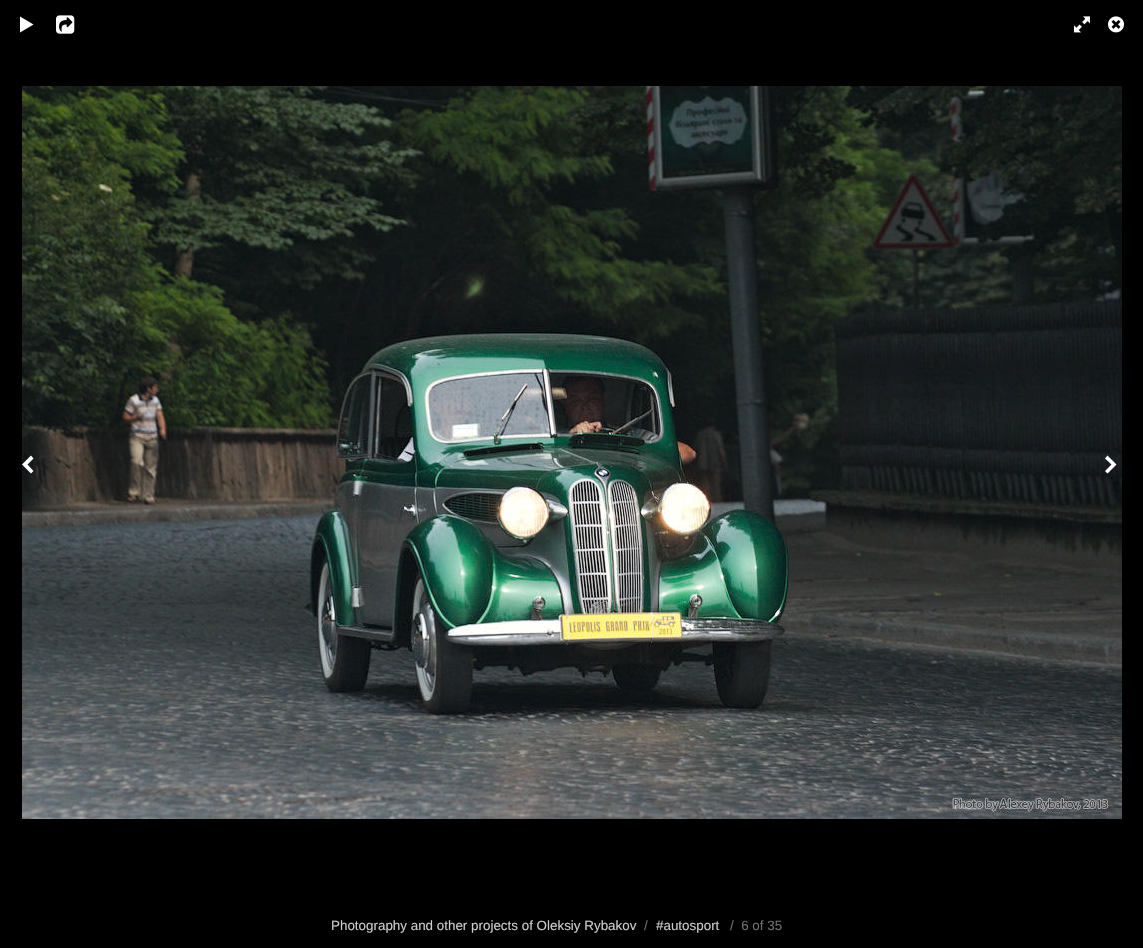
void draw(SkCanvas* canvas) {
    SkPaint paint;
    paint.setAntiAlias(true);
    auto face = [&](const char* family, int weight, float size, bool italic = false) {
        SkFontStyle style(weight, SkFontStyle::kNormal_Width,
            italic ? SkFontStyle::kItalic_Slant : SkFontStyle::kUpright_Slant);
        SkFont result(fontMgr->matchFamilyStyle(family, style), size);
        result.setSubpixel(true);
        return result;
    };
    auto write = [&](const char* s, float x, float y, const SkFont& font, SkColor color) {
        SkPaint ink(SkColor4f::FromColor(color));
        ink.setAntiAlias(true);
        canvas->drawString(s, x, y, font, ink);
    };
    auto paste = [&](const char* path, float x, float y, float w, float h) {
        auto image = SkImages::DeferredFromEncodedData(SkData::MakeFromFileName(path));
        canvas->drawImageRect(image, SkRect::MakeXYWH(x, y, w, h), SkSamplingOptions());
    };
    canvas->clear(SK_ColorBLACK);
    paint.setColor(SK_ColorWHITE);
    canvas->drawPath(SkPathBuilder().moveTo(20, 32.5f).lineTo(20, 16.5f).lineTo(33.5f, 24.5f).close().detach(), paint);
    paste("pic1.png", 56, 15, 19, 19);
    paste("pic2.png", 1074, 16, 16, 17);
    paste("pic3.png", 1108, 16, 16, 17);
    paste("pic4.png", 22, 86, 1100, 733);
    canvas->drawPath(SkPathBuilder().moveTo(22, 464.5f).lineTo(31, 455.5f).lineTo(33.5f, 458.5f).lineTo(27.5f, 464.5f).lineTo(33.5f, 471).lineTo(31, 473.5f).close().detach(), paint);
    canvas->drawPath(SkPathBuilder().moveTo(1105, 471).lineTo(1111.5f, 464.5f).lineTo(1105, 458.5f).lineTo(1107.5f, 455.5f).lineTo(1116.5f, 464.5f).lineTo(1107.5f, 473.5f).close().detach(), paint);
    auto kFont1 = face("Liberation Sans", 400, 13.4f);
    write("Photography and other projects of Oleksiy Rybakov", 331, 930, kFont1, SkColorSetRGB(204, 204, 204));
    write("/", 644, 930, kFont1, SkColorSetRGB(112, 112, 112));
    write("#autosport", 656, 930, kFont1, SkColorSetRGB(204, 204, 204));
    write("/  6 of 35", 730, 930, kFont1, SkColorSetRGB(112, 112, 112));
}
